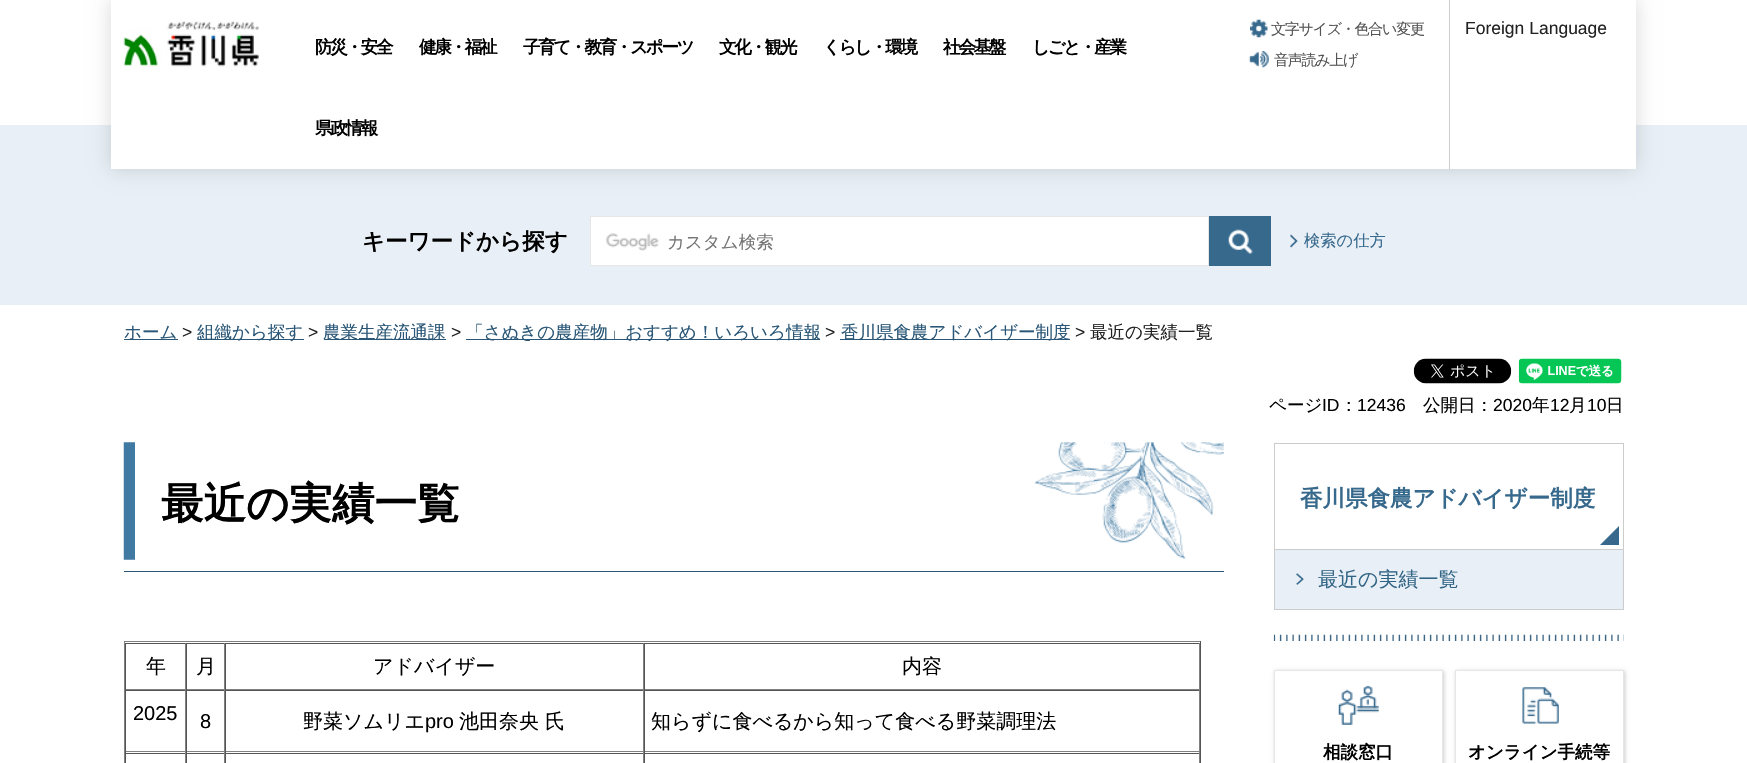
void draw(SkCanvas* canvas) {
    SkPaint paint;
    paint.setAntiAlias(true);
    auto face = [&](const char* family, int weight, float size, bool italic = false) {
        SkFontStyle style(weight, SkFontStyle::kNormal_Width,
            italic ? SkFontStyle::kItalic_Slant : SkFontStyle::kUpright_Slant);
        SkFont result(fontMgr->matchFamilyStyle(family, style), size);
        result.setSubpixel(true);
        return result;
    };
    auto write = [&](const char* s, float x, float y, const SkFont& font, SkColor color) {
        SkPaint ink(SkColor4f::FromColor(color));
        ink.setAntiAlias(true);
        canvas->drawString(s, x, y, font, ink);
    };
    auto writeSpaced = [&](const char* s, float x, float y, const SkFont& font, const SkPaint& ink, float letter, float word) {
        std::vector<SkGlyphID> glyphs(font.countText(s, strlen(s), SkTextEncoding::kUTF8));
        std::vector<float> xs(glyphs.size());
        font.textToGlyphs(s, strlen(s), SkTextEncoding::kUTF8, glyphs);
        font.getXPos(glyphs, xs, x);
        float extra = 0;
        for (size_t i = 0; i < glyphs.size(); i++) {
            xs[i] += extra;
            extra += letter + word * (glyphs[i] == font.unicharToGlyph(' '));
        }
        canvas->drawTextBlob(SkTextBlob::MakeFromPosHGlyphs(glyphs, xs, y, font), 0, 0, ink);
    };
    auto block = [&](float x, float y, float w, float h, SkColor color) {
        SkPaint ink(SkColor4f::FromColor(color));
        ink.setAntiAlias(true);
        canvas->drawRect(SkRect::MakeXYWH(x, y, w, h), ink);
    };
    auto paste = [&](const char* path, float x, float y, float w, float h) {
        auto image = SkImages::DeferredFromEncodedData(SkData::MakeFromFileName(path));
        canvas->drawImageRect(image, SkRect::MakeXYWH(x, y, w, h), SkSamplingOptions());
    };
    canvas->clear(SK_ColorWHITE);
    block(0, 125, 1747, 180, SkColorSetRGB(232, 239, 246));
    paint.setColor(SkColorSetARGB(38, 0, 0, 0));
    paint.setMaskFilter(SkMaskFilter::MakeBlur(kNormal_SkBlurStyle, 9.5f));
    canvas->drawRect(SkRect::MakeXYWH(111, -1, 1525, 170), paint);
    paint.setMaskFilter(nullptr);
    block(111, 0, 1525, 169, SK_ColorWHITE);
    paste("pic1.png", 121, 20, 138, 47);
    paste("pic2.png", 1250, 19, 18, 19);
    auto kFont1 = face("WenQuanYi Zen Hei", 500, 15);
    paint.setColor(SkColorSetRGB(85, 85, 85));
    writeSpaced("文字サイズ・色合い変更", 1271, 34, kFont1, paint, -1.25f, 0);
    paste("pic3.png", 1248, 51, 21, 17);
    writeSpaced("音声読み上げ", 1274, 65, kFont1, paint, -1.25f, 0);
    block(1449, 0, 1, 169, SkColorSetRGB(204, 204, 204));
    auto kFont2 = face("Liberation Sans", 400, 17.5f);
    write("Foreign Language", 1465, 34, kFont2, SkColorSetRGB(34, 34, 34));
    auto kFont3 = face("WenQuanYi Zen Hei", 700, 17.5f);
    paint.setColor(SK_ColorBLACK);
    writeSpaced("防災・安全", 315, 53, kFont3, paint, -2.25f, 0);
    writeSpaced("健康・福祉", 419, 53, kFont3, paint, -2.25f, 0);
    writeSpaced("子育て・教育・スポーツ", 523, 53, kFont3, paint, -2.25f, 0);
    writeSpaced("文化・観光", 719, 53, kFont3, paint, -2.25f, 0);
    writeSpaced("くらし・環境", 823, 53, kFont3, paint, -2.25f, 0);
    writeSpaced("社会基盤", 943, 53, kFont3, paint, -2.25f, 0);
    writeSpaced("しごと・産業", 1032, 53, kFont3, paint, -2.25f, 0);
    writeSpaced("県政情報", 315, 134, kFont3, paint, -2.25f, 0);
    auto kFont4 = face("WenQuanYi Zen Hei", 700, 22.5f);
    write("キーワードから探す", 362, 249, kFont4, SK_ColorBLACK);
    block(591, 217, 617, 48, SK_ColorWHITE);
    paste("pic4.png", 606, 233, 53, 18);
    paint.setStyle(SkPaint::kStroke_Style);
    paint.setStrokeWidth(1);
    paint.setColor(SkColorSetRGB(230, 230, 230));
    canvas->drawRect(SkRect::MakeXYWH(590.5f, 216.5f, 618, 49), paint);
    auto kFont5 = face("WenQuanYi Zen Hei", 500, 17.5f);
    write("カスタム検索", 667, 248, kFont5, SkColorSetRGB(117, 117, 117));
    block(1209, 216, 62, 50, SkColorSetRGB(55, 105, 141));
    paste("pic5.png", 1228, 229, 25, 25);
    paste("pic6.png", 1290, 234, 8, 14);
    auto kFont6 = face("WenQuanYi Zen Hei", 500, 16.25f);
    write("検索の仕方", 1304, 246, kFont6, SkColorSetRGB(55, 105, 141));
    block(124, 339, 54, 1, SkColorSetRGB(41, 86, 118));
    write("ホーム", 124, 338, kFont5, SkColorSetRGB(41, 86, 118));
    write(">", 182, 338, kFont2, SkColorSetRGB(34, 34, 34));
    block(198, 339, 106, 1, SkColorSetRGB(41, 86, 118));
    write("組織から探す", 197, 338, kFont5, SkColorSetRGB(41, 86, 118));
    write(">", 308, 338, kFont2, SkColorSetRGB(34, 34, 34));
    block(324, 339, 122, 1, SkColorSetRGB(41, 86, 118));
    write("農業生産流通課", 323, 338, kFont5, SkColorSetRGB(41, 86, 118));
    write(">", 451, 338, kFont2, SkColorSetRGB(34, 34, 34));
    block(466, 339, 354, 1, SkColorSetRGB(41, 86, 118));
    write("「さぬきの農産物」おすすめ！いろいろ情報", 466, 338, kFont5, SkColorSetRGB(41, 86, 118));
    write(">", 825, 338, kFont2, SkColorSetRGB(34, 34, 34));
    block(840, 339, 230, 1, SkColorSetRGB(41, 86, 118));
    write("香川県食農アドバイザー制度", 841, 338, kFont5, SkColorSetRGB(41, 86, 118));
    write(">", 1075, 338, kFont2, SkColorSetRGB(34, 34, 34));
    write("最近の実績一覧", 1090, 338, kFont5, SkColorSetRGB(34, 34, 34));
    paste("pic7.png", 1413, 358, 99, 26);
    paste("pic8.png", 1518, 358, 104, 26);
    write("ページ", 1269, 411, kFont5, SK_ColorBLACK);
    write("ID", 1322, 411, kFont2, SK_ColorBLACK);
    write("：", 1340, 411, kFont5, SK_ColorBLACK);
    write("12436", 1357, 411, kFont2, SK_ColorBLACK);
    write("公開日：", 1423, 411, kFont5, SK_ColorBLACK);
    write("2020", 1493, 411, kFont2, SK_ColorBLACK);
    write("年", 1532, 411, kFont5, SK_ColorBLACK);
    write("12", 1550, 411, kFont2, SK_ColorBLACK);
    write("月", 1569, 411, kFont5, SK_ColorBLACK);
    write("10", 1587, 411, kFont2, SK_ColorBLACK);
    write("日", 1606, 411, kFont5, SK_ColorBLACK);
    paste("pic9.png", 123, 442, 1101, 118);
    block(124, 571, 1100, 1, SkColorSetRGB(41, 86, 118));
    auto kFont7 = face("WenQuanYi Zen Hei", 700, 42.5f);
    write("最近の実績一覧", 161, 518, kFont7, SK_ColorBLACK);
    block(124, 641, 1077, 1, SkColorSetRGB(128, 128, 128));
    block(1200, 641, 1, 122, SkColorSetRGB(85, 85, 85));
    block(124, 641, 1, 122, SkColorSetRGB(128, 128, 128));
    block(125, 643, 1075, 1, SkColorSetRGB(85, 85, 85));
    block(185, 643, 1, 47, SkColorSetRGB(128, 128, 128));
    block(125, 689, 61, 1, SkColorSetRGB(128, 128, 128));
    block(125, 643, 1, 47, SkColorSetRGB(85, 85, 85));
    auto kFont8 = face("WenQuanYi Zen Hei", 500, 20);
    write("年", 146, 673, kFont8, SK_ColorBLACK);
    block(224, 643, 1, 47, SkColorSetRGB(128, 128, 128));
    block(186, 689, 39, 1, SkColorSetRGB(128, 128, 128));
    block(186, 643, 1, 47, SkColorSetRGB(85, 85, 85));
    write("月", 196, 673, kFont8, SK_ColorBLACK);
    block(643, 643, 1, 47, SkColorSetRGB(128, 128, 128));
    block(225, 689, 419, 1, SkColorSetRGB(128, 128, 128));
    block(225, 643, 1, 47, SkColorSetRGB(85, 85, 85));
    write("アドバイザー", 373, 673, kFont8, SK_ColorBLACK);
    block(1199, 643, 1, 47, SkColorSetRGB(128, 128, 128));
    block(644, 689, 556, 1, SkColorSetRGB(128, 128, 128));
    block(644, 643, 1, 47, SkColorSetRGB(85, 85, 85));
    write("内容", 902, 673, kFont8, SK_ColorBLACK);
    block(125, 690, 1075, 1, SkColorSetRGB(85, 85, 85));
    block(185, 690, 1, 63, SkColorSetRGB(128, 128, 128));
    block(125, 751, 61, 1, SkColorSetRGB(128, 128, 128));
    block(125, 690, 1, 63, SkColorSetRGB(85, 85, 85));
    auto kFont9 = face("Liberation Sans", 400, 20);
    write("2025", 133, 720, kFont9, SK_ColorBLACK);
    block(224, 690, 1, 63, SkColorSetRGB(128, 128, 128));
    block(186, 751, 39, 1, SkColorSetRGB(128, 128, 128));
    block(186, 690, 1, 63, SkColorSetRGB(85, 85, 85));
    write("8", 200, 728, kFont9, SK_ColorBLACK);
    block(643, 690, 1, 63, SkColorSetRGB(128, 128, 128));
    block(225, 751, 419, 1, SkColorSetRGB(128, 128, 128));
    block(225, 690, 1, 63, SkColorSetRGB(85, 85, 85));
    write("野菜ソムリエ", 303, 728, kFont8, SK_ColorBLACK);
    write("pro", 425, 728, kFont9, SK_ColorBLACK);
    write("池田奈央 氏", 459, 728, kFont8, SK_ColorBLACK);
    block(1199, 690, 1, 63, SkColorSetRGB(128, 128, 128));
    block(644, 751, 556, 1, SkColorSetRGB(128, 128, 128));
    block(644, 690, 1, 63, SkColorSetRGB(85, 85, 85));
    write("知らずに食べるから知って食べる野菜調理法", 651, 728, kFont8, SK_ColorBLACK);
    block(125, 753, 1075, 1, SkColorSetRGB(85, 85, 85));
    block(185, 753, 1, 10, SkColorSetRGB(128, 128, 128));
    block(125, 753, 1, 10, SkColorSetRGB(85, 85, 85));
    block(224, 753, 1, 10, SkColorSetRGB(128, 128, 128));
    block(186, 753, 1, 10, SkColorSetRGB(85, 85, 85));
    block(643, 753, 1, 10, SkColorSetRGB(128, 128, 128));
    block(225, 753, 1, 10, SkColorSetRGB(85, 85, 85));
    block(1199, 753, 1, 10, SkColorSetRGB(128, 128, 128));
    block(644, 753, 1, 10, SkColorSetRGB(85, 85, 85));
    paint.setColor(SkColorSetRGB(204, 204, 204));
    canvas->drawRect(SkRect::MakeXYWH(1274.5f, 443.5f, 349, 166), paint);
    block(1275, 549, 348, 1, SkColorSetRGB(204, 204, 204));
    write("香川県食農アドバイザー制度", 1300, 506, kFont4, SkColorSetRGB(55, 105, 141));
    paint.setStyle(SkPaint::kFill_Style);
    paint.setColor(SkColorSetRGB(55, 105, 141));
    canvas->drawPath(SkPathBuilder().moveTo(1619, 545).lineTo(1600, 545).lineTo(1619, 526).close().detach(), paint);
    block(1275, 550, 348, 59, SkColorSetRGB(232, 239, 246));
    paste("pic10.png", 1296, 573, 8, 12);
    write("最近の実績一覧", 1318, 586, kFont8, SkColorSetRGB(50, 100, 133));
    paste("pic11.png", 1273, 634, 351, 7);
    paint.setColor(SkColorSetARGB(51, 11, 2, 5));
    paint.setMaskFilter(SkMaskFilter::MakeBlur(kNormal_SkBlurStyle, 2));
    canvas->drawRect(SkRect::MakeXYWH(1275, 671, 169, 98), paint);
    paint.setMaskFilter(nullptr);
    paint.setColor(SK_ColorWHITE);
    canvas->drawRect(SkRect::MakeXYWH(1274.5f, 670.5f, 168, 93), paint);
    paint.setStyle(SkPaint::kStroke_Style);
    paint.setColor(SkColorSetRGB(230, 230, 230));
    canvas->drawRect(SkRect::MakeXYWH(1274.5f, 670.5f, 168, 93), paint);
    paste("pic12.png", 1338, 685, 41, 40);
    write("相談窓口", 1323, 758, kFont3, SK_ColorBLACK);
    paint.setStyle(SkPaint::kFill_Style);
    paint.setColor(SkColorSetARGB(51, 11, 2, 5));
    paint.setMaskFilter(SkMaskFilter::MakeBlur(kNormal_SkBlurStyle, 2));
    canvas->drawRect(SkRect::MakeXYWH(1456, 671, 169, 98), paint);
    paint.setMaskFilter(nullptr);
    paint.setColor(SK_ColorWHITE);
    canvas->drawRect(SkRect::MakeXYWH(1455.5f, 670.5f, 168, 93), paint);
    paint.setStyle(SkPaint::kStroke_Style);
    paint.setColor(SkColorSetRGB(230, 230, 230));
    canvas->drawRect(SkRect::MakeXYWH(1455.5f, 670.5f, 168, 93), paint);
    paste("pic13.png", 1522, 687, 37, 37);
    write("オンライン手続等", 1468, 758, kFont3, SK_ColorBLACK);
}
